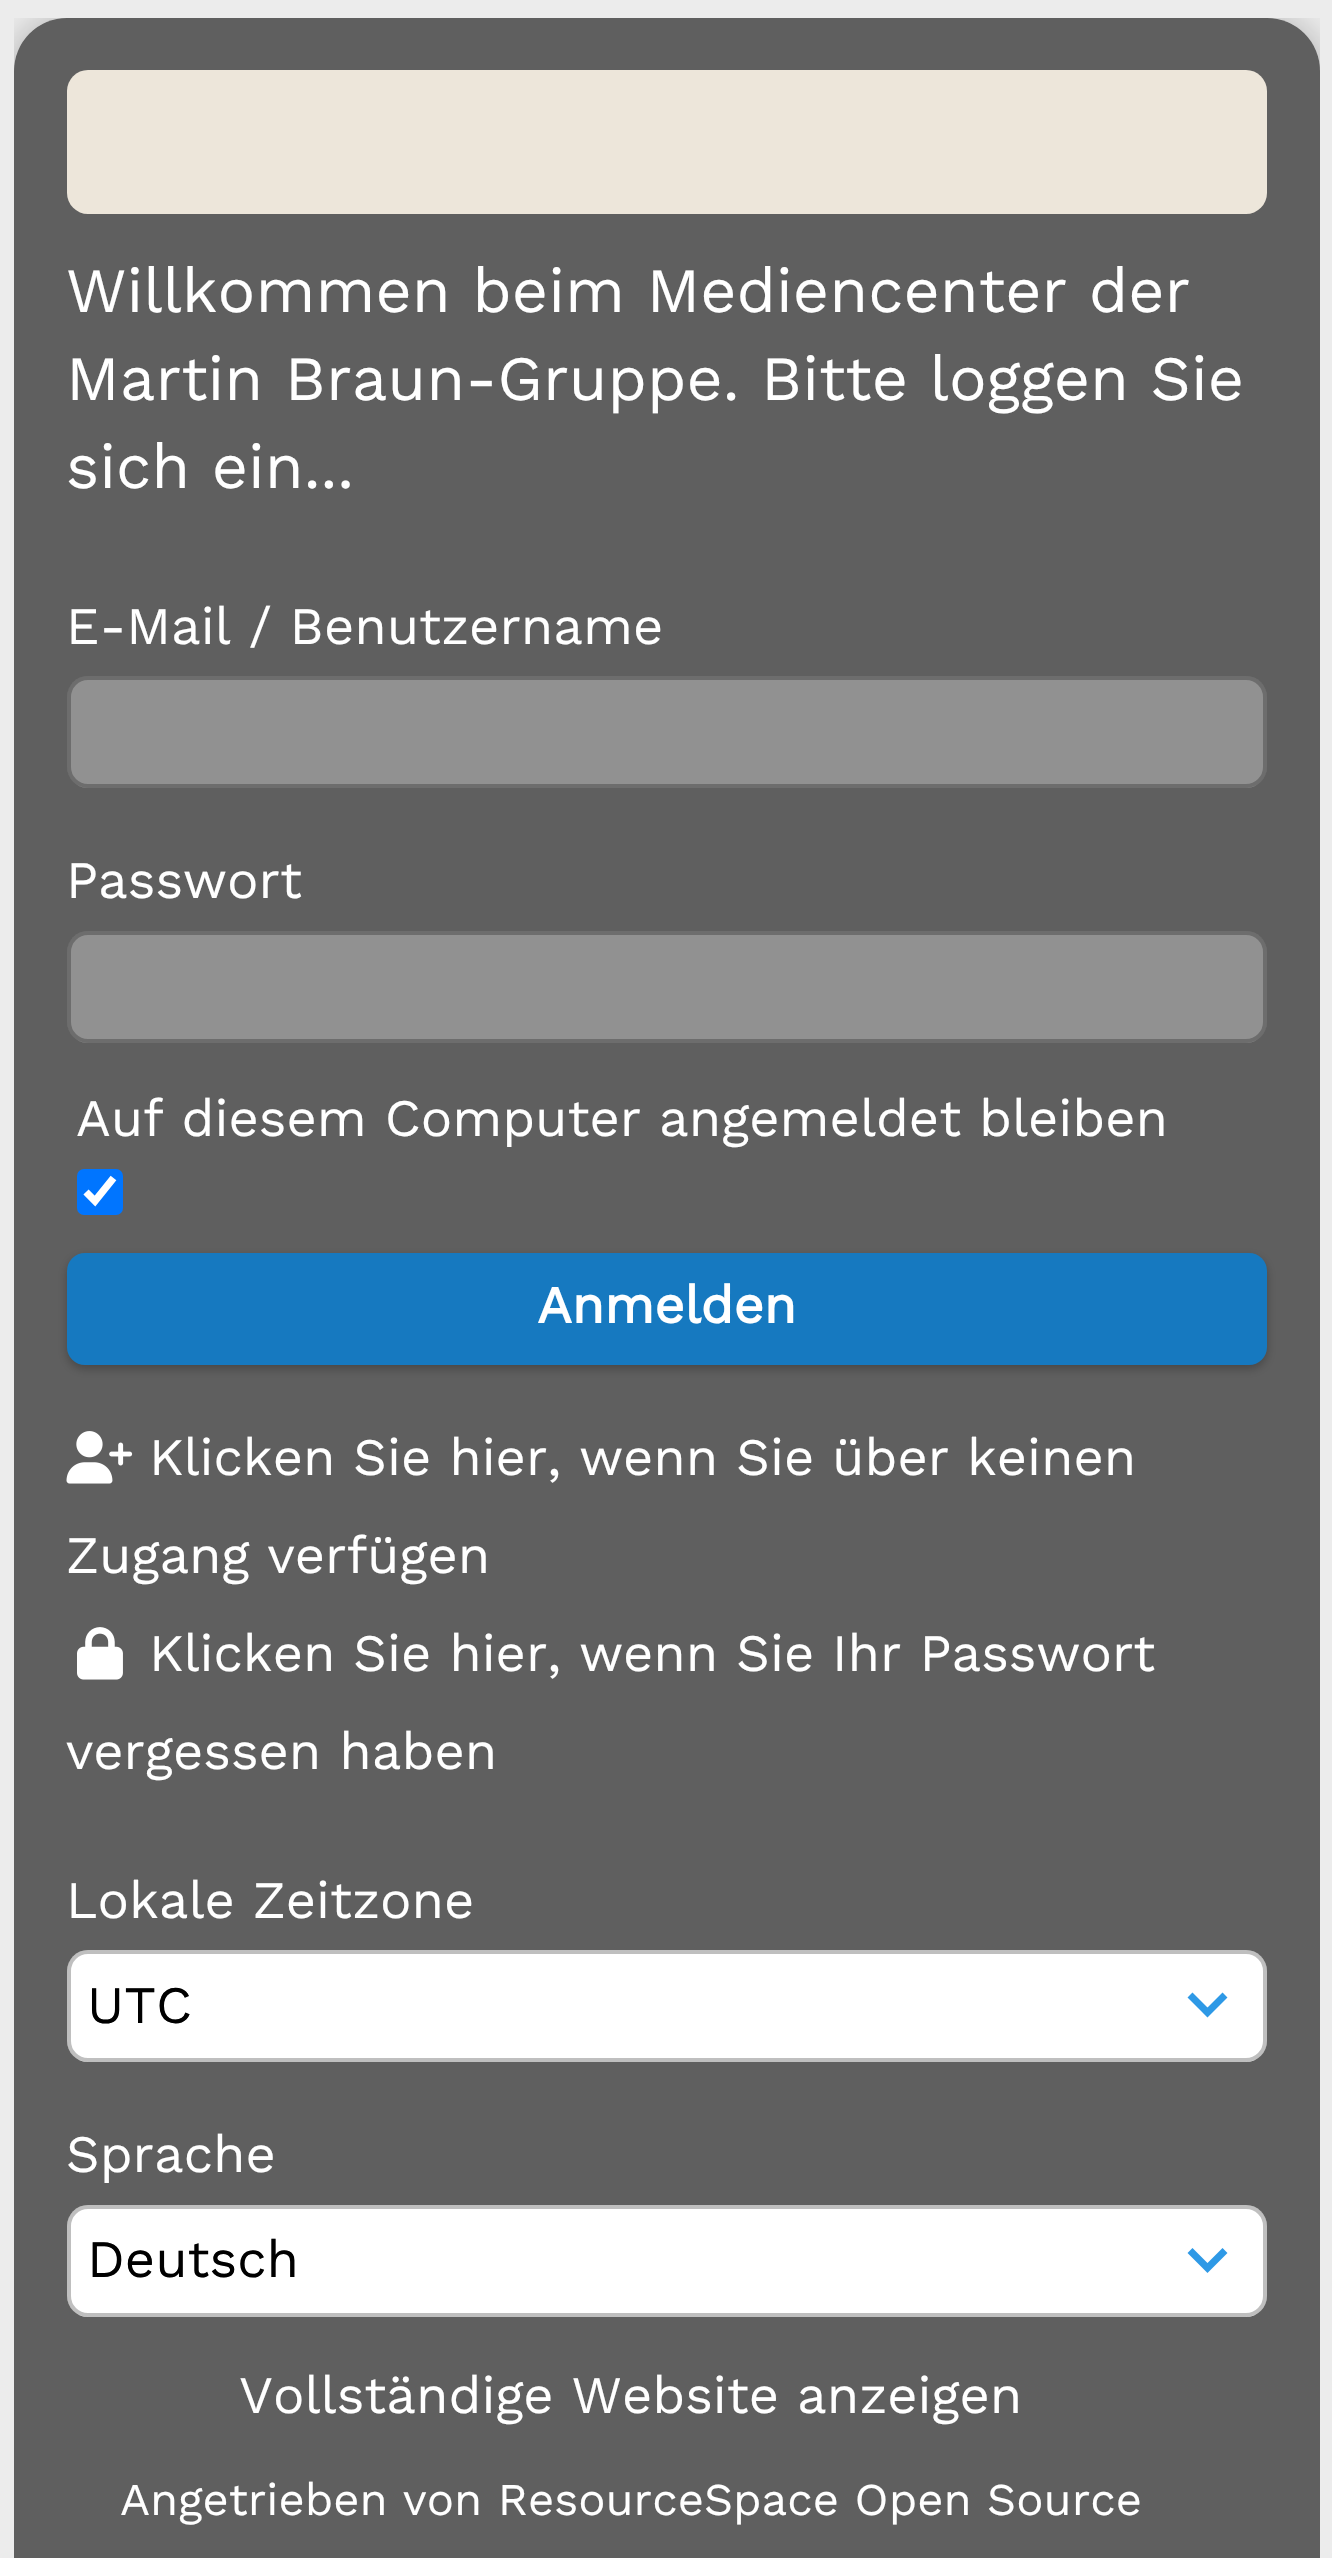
void draw(SkCanvas* canvas) {
    SkPaint paint;
    paint.setAntiAlias(true);
    auto face = [&](const char* family, int weight, float size, bool italic = false) {
        SkFontStyle style(weight, SkFontStyle::kNormal_Width,
            italic ? SkFontStyle::kItalic_Slant : SkFontStyle::kUpright_Slant);
        SkFont result(fontMgr->matchFamilyStyle(family, style), size);
        result.setSubpixel(true);
        return result;
    };
    auto write = [&](const char* s, float x, float y, const SkFont& font, SkColor color) {
        SkPaint ink(SkColor4f::FromColor(color));
        ink.setAntiAlias(true);
        canvas->drawString(s, x, y, font, ink);
    };
    auto card = [&](float x, float y, float w, float h, float radius, SkColor color) {
        SkPaint ink(SkColor4f::FromColor(color));
        ink.setAntiAlias(true);
        canvas->drawRoundRect(SkRect::MakeXYWH(x, y, w, h), radius, radius, ink);
    };
    auto paste = [&](const char* path, float x, float y, float w, float h) {
        auto image = SkImages::DeferredFromEncodedData(SkData::MakeFromFileName(path));
        canvas->drawImageRect(image, SkRect::MakeXYWH(x, y, w, h), SkSamplingOptions());
    };
    canvas->clear(SkColorSetRGB(236, 236, 236));
    canvas->save();
    canvas->clipRect(SkRect::MakeXYWH(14, 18, 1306, 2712));
    canvas->clipPath(SkPathBuilder(SkPathFillType::kEvenOdd).moveTo(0, 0).lineTo(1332, 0).lineTo(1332, 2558).lineTo(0, 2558).close().moveTo(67, 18).lineTo(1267, 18).cubicTo(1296.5f, 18, 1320, 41.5f, 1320, 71).lineTo(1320, 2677).cubicTo(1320, 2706.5f, 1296.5f, 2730, 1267, 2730).lineTo(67, 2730).cubicTo(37.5f, 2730, 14, 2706.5f, 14, 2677).lineTo(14, 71).cubicTo(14, 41.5f, 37.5f, 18, 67, 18).close().detach(), true);
    paint.setColor(SkColorSetARGB(64, 0, 0, 0));
    paint.setMaskFilter(SkMaskFilter::MakeBlur(kNormal_SkBlurStyle, 17.5f));
    canvas->drawRoundRect(SkRect::MakeXYWH(11, 18, 1312, 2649), 56, 56, paint);
    paint.setMaskFilter(nullptr);
    canvas->restore();
    card(14, 18, 1306, 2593, 53, SkColorSetARGB(153, 0, 0, 0));
    card(67, 70, 1200, 144, 21, SkColorSetRGB(237, 230, 218));
    auto kFont1 = face("Work Sans", 400, 63);
    write("Willkommen beim Mediencenter der", 66, 312, kFont1, SK_ColorWHITE);
    write("Martin Braun-Gruppe. Bitte loggen Sie", 66, 400, kFont1, SK_ColorWHITE);
    write("sich ein...", 66, 488, kFont1, SK_ColorWHITE);
    auto kFont2 = face("Work Sans", 400, 52.5f);
    write("E-Mail / Benutzername", 66, 644, kFont2, SK_ColorWHITE);
    card(67, 676, 1200, 112, 21, SkColorSetRGB(145, 145, 145));
    paint.setStyle(SkPaint::kStroke_Style);
    paint.setStrokeWidth(4);
    canvas->drawRoundRect(SkRect::MakeXYWH(69, 678, 1196, 108), 19, 19, paint);
    write("Passwort", 66, 898, kFont2, SK_ColorWHITE);
    card(67, 931, 1200, 112, 21, SkColorSetRGB(145, 145, 145));
    canvas->drawRoundRect(SkRect::MakeXYWH(69, 933, 1196, 108), 19, 19, paint);
    write("Auf diesem Computer angemeldet bleiben", 76, 1136, kFont2, SK_ColorWHITE);
    card(77, 1169, 46, 46, 7, SkColorSetRGB(0, 117, 255));
    paint.setStrokeWidth(7.3f);
    paint.setColor(SK_ColorWHITE);
    canvas->drawPath(SkPathBuilder().moveTo(86, 1192).lineTo(95, 1201).lineTo(113.5f, 1178).detach(), paint);
    paint.setStyle(SkPaint::kFill_Style);
    paint.setColor(SkColorSetARGB(64, 0, 0, 0));
    paint.setMaskFilter(SkMaskFilter::MakeBlur(kNormal_SkBlurStyle, 5));
    canvas->drawRoundRect(SkRect::MakeXYWH(67, 1257, 1200, 112), 18, 18, paint);
    paint.setMaskFilter(nullptr);
    card(67, 1253, 1200, 112, 18, SkColorSetRGB(22, 121, 192));
    auto kFont3 = face("Work Sans", 700, 52.5f);
    write("Anmelden", 537, 1323, kFont3, SK_ColorWHITE);
    paste("pic1.png", 66, 1431, 67, 53);
    write("Klicken Sie hier, wenn Sie über keinen", 149, 1475, kFont2, SK_ColorWHITE);
    write("Zugang verfügen", 66, 1573, kFont2, SK_ColorWHITE);
    paste("pic2.png", 77, 1627, 46, 53);
    write("Klicken Sie hier, wenn Sie Ihr Passwort", 149, 1671, kFont2, SK_ColorWHITE);
    write("vergessen haben", 66, 1769, kFont2, SK_ColorWHITE);
    write("Lokale Zeitzone", 66, 1918, kFont2, SK_ColorWHITE);
    card(67, 1950, 1200, 112, 21, SK_ColorWHITE);
    paint.setStyle(SkPaint::kStroke_Style);
    paint.setStrokeWidth(7);
    paint.setColor(SkColorSetRGB(46, 153, 230));
    canvas->drawPath(SkPathBuilder().moveTo(1225, 1995).lineTo(1207.5f, 2012.5f).lineTo(1190, 1995).detach(), paint);
    paint.setStrokeWidth(4);
    paint.setColor(SkColorSetARGB(64, 0, 0, 0));
    canvas->drawRoundRect(SkRect::MakeXYWH(69, 1952, 1196, 108), 19, 19, paint);
    write("UTC", 87, 2023, kFont2, SK_ColorBLACK);
    write("Sprache", 66, 2172, kFont2, SK_ColorWHITE);
    card(67, 2205, 1200, 112, 21, SK_ColorWHITE);
    paint.setStrokeWidth(7);
    paint.setColor(SkColorSetRGB(46, 153, 230));
    canvas->drawPath(SkPathBuilder().moveTo(1225, 2250.5f).lineTo(1207.5f, 2268).lineTo(1190, 2250.5f).detach(), paint);
    paint.setStrokeWidth(4);
    paint.setColor(SkColorSetARGB(64, 0, 0, 0));
    canvas->drawRoundRect(SkRect::MakeXYWH(69, 2207, 1196, 108), 19, 19, paint);
    write("Deutsch", 87, 2277, kFont2, SK_ColorBLACK);
    write("Vollständige Website anzeigen", 239, 2413, kFont2, SK_ColorWHITE);
    auto kFont4 = face("Work Sans", 400, 45.5f);
    write("Angetrieben von ResourceSpace Open Source", 120, 2515, kFont4, SK_ColorWHITE);
}
